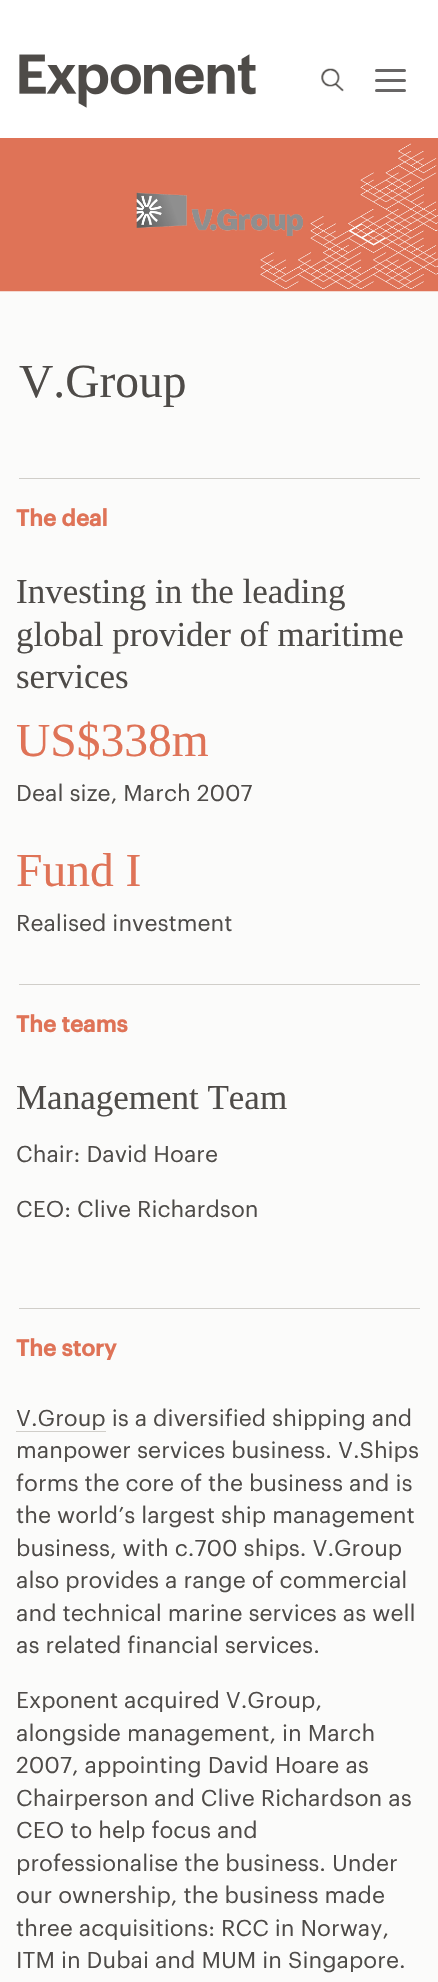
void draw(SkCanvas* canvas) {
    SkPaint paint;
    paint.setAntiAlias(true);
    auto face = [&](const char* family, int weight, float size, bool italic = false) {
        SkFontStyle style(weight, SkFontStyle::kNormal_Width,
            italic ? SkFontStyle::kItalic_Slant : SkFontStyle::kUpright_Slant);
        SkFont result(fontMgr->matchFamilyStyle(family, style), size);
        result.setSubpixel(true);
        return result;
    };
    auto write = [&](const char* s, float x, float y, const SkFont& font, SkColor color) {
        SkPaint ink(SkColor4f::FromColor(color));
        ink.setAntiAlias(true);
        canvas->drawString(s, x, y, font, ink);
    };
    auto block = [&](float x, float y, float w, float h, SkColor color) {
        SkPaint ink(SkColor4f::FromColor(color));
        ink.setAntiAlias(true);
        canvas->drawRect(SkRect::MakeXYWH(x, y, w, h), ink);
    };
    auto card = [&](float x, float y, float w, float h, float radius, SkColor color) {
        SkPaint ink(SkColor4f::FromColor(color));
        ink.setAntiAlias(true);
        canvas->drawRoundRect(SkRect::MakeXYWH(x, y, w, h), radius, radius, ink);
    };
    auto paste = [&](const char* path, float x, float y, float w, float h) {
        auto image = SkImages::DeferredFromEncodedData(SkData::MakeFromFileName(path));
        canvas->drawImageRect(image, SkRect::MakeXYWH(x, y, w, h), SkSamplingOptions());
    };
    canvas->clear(SkColorSetRGB(251, 251, 250));
    block(0, 0, 438, 138, SK_ColorWHITE);
    paste("pic1.png", 19, 54, 237, 54);
    paste("pic2.png", 321, 68, 23, 24);
    card(375, 79, 31, 3, 1.5f, SkColorSetRGB(104, 102, 102));
    card(375, 69, 31, 3, 1.5f, SkColorSetRGB(104, 102, 102));
    card(375, 89, 31, 3, 1.5f, SkColorSetRGB(104, 102, 102));
    paste("pic3.png", 0, 138, 438, 154);
    paste("pic4.png", 136, 192, 167, 44);
    auto kFont1 = face("Liberation Serif", 400, 47.5f);
    write("V.Group", 19, 397, kFont1, SkColorSetRGB(78, 75, 72));
    block(19, 478, 401, 1, SkColorSetRGB(208, 206, 201));
    auto kFont2 = face("Graphik", 700, 22.5f);
    write("The deal", 16, 526, kFont2, SkColorSetRGB(223, 115, 87));
    auto kFont3 = face("Liberation Serif", 400, 35);
    write("Investing in the leading", 16, 603, kFont3, SkColorSetRGB(78, 75, 72));
    write("global provider of maritime", 16, 646, kFont3, SkColorSetRGB(78, 75, 72));
    write("services", 16, 688, kFont3, SkColorSetRGB(78, 75, 72));
    write("US$338m", 16, 756, kFont1, SkColorSetRGB(223, 115, 87));
    auto kFont4 = face("Graphik", 400, 22.5f);
    write("Deal size, March 2007", 16, 801, kFont4, SkColorSetRGB(78, 75, 72));
    write("Fund I", 16, 886, kFont1, SkColorSetRGB(223, 115, 87));
    write("Realised investment", 16, 931, kFont4, SkColorSetRGB(78, 75, 72));
    block(19, 984, 401, 1, SkColorSetRGB(208, 206, 201));
    write("The teams", 16, 1032, kFont2, SkColorSetRGB(223, 115, 87));
    write("Management Team", 16, 1109, kFont3, SkColorSetRGB(78, 75, 72));
    write("Chair: David Hoare", 16, 1162, kFont4, SkColorSetRGB(78, 75, 72));
    write("CEO: Clive Richardson", 16, 1217, kFont4, SkColorSetRGB(78, 75, 72));
    block(19, 1308, 401, 1, SkColorSetRGB(208, 206, 201));
    write("The story", 16, 1356, kFont2, SkColorSetRGB(223, 115, 87));
    write("V.Group is a diversified shipping and", 16, 1426, kFont4, SkColorSetRGB(78, 75, 72));
    block(16, 1431, 90, 1, SkColorSetRGB(208, 206, 201));
    write("manpower services business. V.Ships", 16, 1458, kFont4, SkColorSetRGB(78, 75, 72));
    write("forms the core of the business and is", 16, 1491, kFont4, SkColorSetRGB(78, 75, 72));
    write("the world’s largest ship management", 16, 1523, kFont4, SkColorSetRGB(78, 75, 72));
    write("business, with c.700 ships. V.Group", 16, 1556, kFont4, SkColorSetRGB(78, 75, 72));
    write("also provides a range of commercial", 16, 1588, kFont4, SkColorSetRGB(78, 75, 72));
    write("and technical marine services as well", 16, 1621, kFont4, SkColorSetRGB(78, 75, 72));
    write("as related financial services.", 16, 1653, kFont4, SkColorSetRGB(78, 75, 72));
    write("Exponent acquired V.Group,", 16, 1708, kFont4, SkColorSetRGB(78, 75, 72));
    write("alongside management, in March", 16, 1741, kFont4, SkColorSetRGB(78, 75, 72));
    write("2007, appointing David Hoare as", 16, 1773, kFont4, SkColorSetRGB(78, 75, 72));
    write("Chairperson and Clive Richardson as", 16, 1806, kFont4, SkColorSetRGB(78, 75, 72));
    write("CEO to help focus and", 16, 1838, kFont4, SkColorSetRGB(78, 75, 72));
    write("professionalise the business. Under", 16, 1871, kFont4, SkColorSetRGB(78, 75, 72));
    write("our ownership, the business made", 16, 1903, kFont4, SkColorSetRGB(78, 75, 72));
    write("three acquisitions: RCC in Norway,", 16, 1936, kFont4, SkColorSetRGB(78, 75, 72));
    write("ITM in Dubai and MUM in Singapore.", 16, 1968, kFont4, SkColorSetRGB(78, 75, 72));
}
